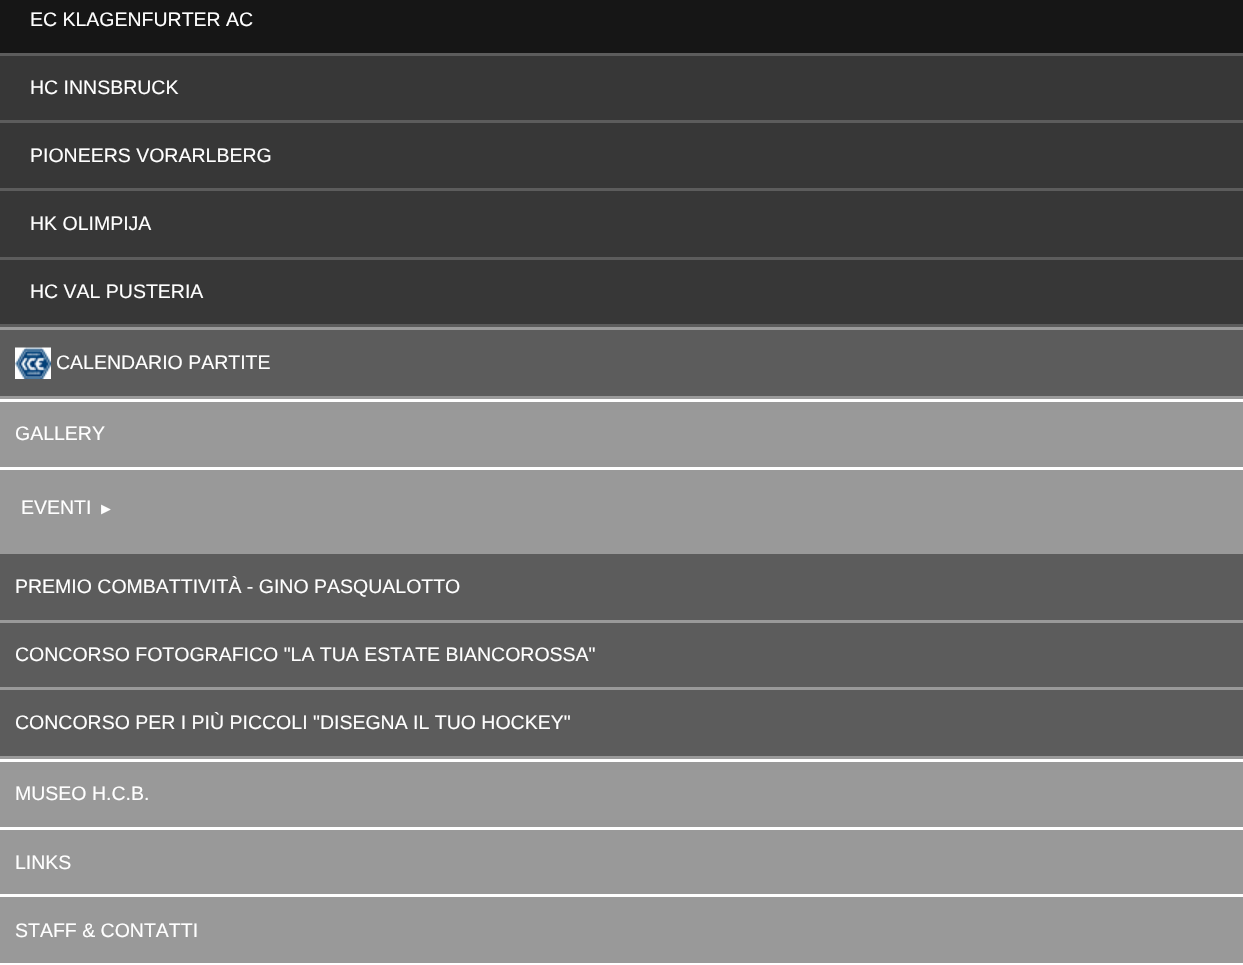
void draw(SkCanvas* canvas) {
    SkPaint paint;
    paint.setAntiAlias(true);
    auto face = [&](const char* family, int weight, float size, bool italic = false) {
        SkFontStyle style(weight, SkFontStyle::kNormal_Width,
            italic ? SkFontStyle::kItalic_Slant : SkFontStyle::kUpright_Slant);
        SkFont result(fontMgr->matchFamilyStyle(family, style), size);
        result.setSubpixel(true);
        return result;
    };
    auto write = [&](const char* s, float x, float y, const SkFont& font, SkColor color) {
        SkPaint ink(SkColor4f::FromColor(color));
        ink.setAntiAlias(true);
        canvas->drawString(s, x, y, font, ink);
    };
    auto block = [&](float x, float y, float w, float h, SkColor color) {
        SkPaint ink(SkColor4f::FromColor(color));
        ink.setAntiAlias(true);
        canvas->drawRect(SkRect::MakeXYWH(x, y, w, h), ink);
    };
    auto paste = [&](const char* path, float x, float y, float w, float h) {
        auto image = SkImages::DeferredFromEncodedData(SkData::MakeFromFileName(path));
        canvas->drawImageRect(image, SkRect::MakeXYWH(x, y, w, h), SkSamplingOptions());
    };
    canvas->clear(SK_ColorWHITE);
    block(0, 327, 1243, 72, SkColorSetRGB(154, 154, 154));
    block(0, 53, 1243, 274, SkColorSetRGB(92, 92, 92));
    block(0, 0, 1243, 53, SkColorSetRGB(22, 22, 22));
    auto kFont1 = face("Liberation Sans", 400, 19.5f);
    write("EC KLAGENFURTER AC", 30, 26, kFont1, SK_ColorWHITE);
    block(0, 56, 1243, 64, SkColorSetRGB(55, 55, 55));
    write("HC INNSBRUCK", 30, 94, kFont1, SK_ColorWHITE);
    block(0, 123, 1243, 65, SkColorSetRGB(55, 55, 55));
    write("PIONEERS VORARLBERG", 30, 162, kFont1, SK_ColorWHITE);
    block(0, 191, 1243, 66, SkColorSetRGB(55, 55, 55));
    write("HK OLIMPIJA", 30, 230, kFont1, SK_ColorWHITE);
    block(0, 260, 1243, 64, SkColorSetRGB(55, 55, 55));
    write("HC VAL PUSTERIA", 30, 298, kFont1, SK_ColorWHITE);
    block(0, 330, 1243, 66, SkColorSetRGB(92, 92, 92));
    paste("pic1.png", 15, 347, 36, 32);
    write("CALENDARIO PARTITE", 56, 369, kFont1, SK_ColorWHITE);
    block(0, 402, 1243, 65, SkColorSetRGB(153, 153, 153));
    write("GALLERY", 15, 440, kFont1, SK_ColorWHITE);
    block(0, 470, 1243, 289, SkColorSetRGB(153, 153, 153));
    write("EVENTI", 21, 514, kFont1, SK_ColorWHITE);
    auto kFont2 = face("Liberation Sans", 400, 16);
    write("►", 98, 514, kFont2, SK_ColorWHITE);
    block(0, 554, 1243, 66, SkColorSetRGB(92, 92, 92));
    write("PREMIO COMBATTIVITÀ - GINO PASQUALOTTO", 15, 593, kFont1, SK_ColorWHITE);
    block(0, 623, 1243, 64, SkColorSetRGB(92, 92, 92));
    write("CONCORSO FOTOGRAFICO \"LA TUA ESTATE BIANCOROSSA\"", 15, 661, kFont1, SK_ColorWHITE);
    block(0, 690, 1243, 66, SkColorSetRGB(92, 92, 92));
    write("CONCORSO PER I PIÙ PICCOLI \"DISEGNA IL TUO HOCKEY\"", 15, 729, kFont1, SK_ColorWHITE);
    block(0, 762, 1243, 65, SkColorSetRGB(153, 153, 153));
    write("MUSEO H.C.B.", 15, 800, kFont1, SK_ColorWHITE);
    block(0, 830, 1243, 64, SkColorSetRGB(153, 153, 153));
    write("LINKS", 15, 869, kFont1, SK_ColorWHITE);
    block(0, 897, 1243, 66, SkColorSetRGB(153, 153, 153));
    write("STAFF & CONTATTI", 15, 937, kFont1, SK_ColorWHITE);
}
